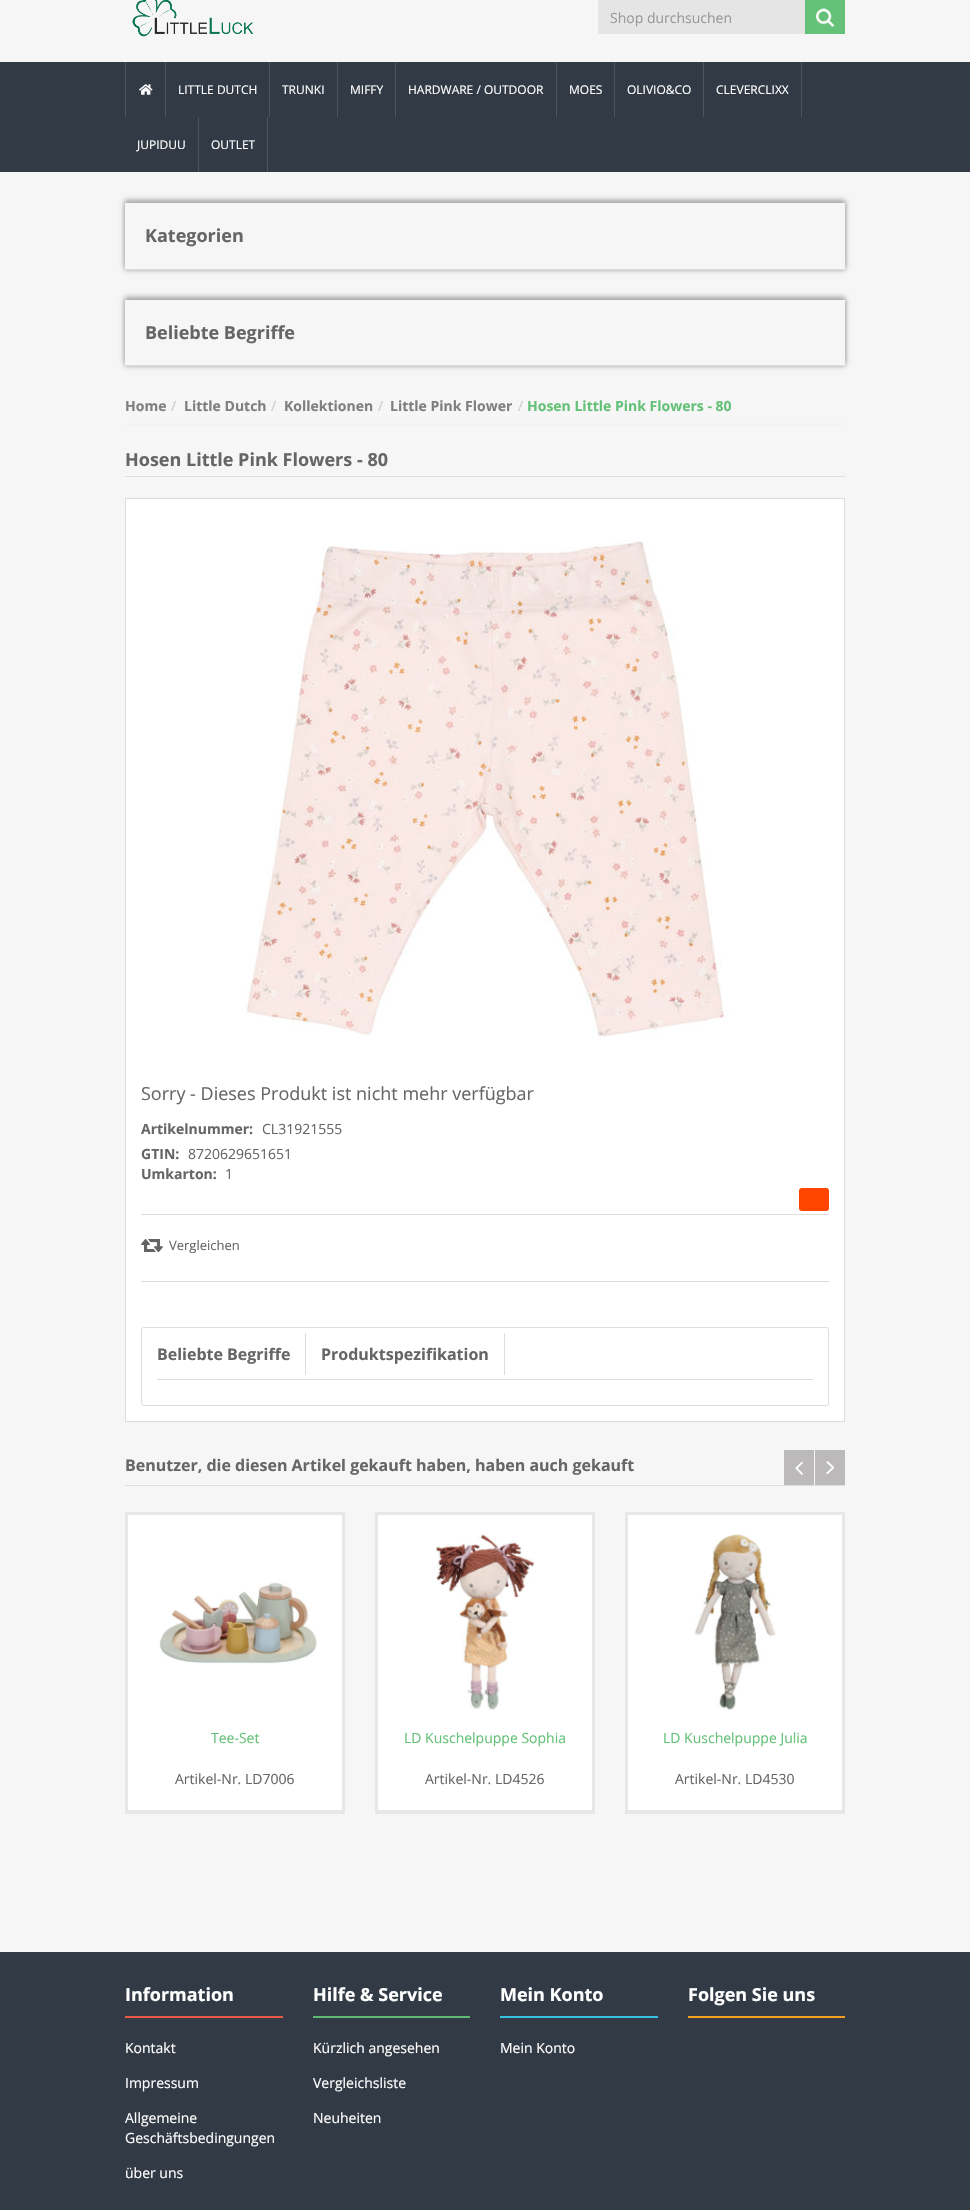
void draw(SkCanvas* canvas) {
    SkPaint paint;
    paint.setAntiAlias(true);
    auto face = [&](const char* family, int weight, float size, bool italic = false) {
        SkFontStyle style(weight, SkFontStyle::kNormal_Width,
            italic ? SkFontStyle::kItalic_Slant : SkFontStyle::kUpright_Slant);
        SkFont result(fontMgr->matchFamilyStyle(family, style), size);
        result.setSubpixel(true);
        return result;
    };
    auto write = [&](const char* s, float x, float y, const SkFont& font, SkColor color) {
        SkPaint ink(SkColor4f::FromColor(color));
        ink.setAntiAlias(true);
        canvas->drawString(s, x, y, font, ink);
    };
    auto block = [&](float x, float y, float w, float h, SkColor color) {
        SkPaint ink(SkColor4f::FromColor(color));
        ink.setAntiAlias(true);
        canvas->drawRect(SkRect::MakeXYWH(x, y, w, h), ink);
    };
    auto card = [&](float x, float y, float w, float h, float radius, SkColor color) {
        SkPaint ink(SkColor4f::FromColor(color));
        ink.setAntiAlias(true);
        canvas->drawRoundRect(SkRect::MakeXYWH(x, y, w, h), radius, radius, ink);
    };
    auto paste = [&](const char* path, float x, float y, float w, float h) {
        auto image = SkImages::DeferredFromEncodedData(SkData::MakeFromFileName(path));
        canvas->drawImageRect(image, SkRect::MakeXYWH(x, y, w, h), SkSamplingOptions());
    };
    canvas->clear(SkColorSetRGB(246, 246, 246));
    paste("pic1.png", 132, 0, 121, 37);
    block(598, 0, 207, 34, SkColorSetRGB(229, 229, 229));
    auto kFont1 = face("Open Sans", 400, 14);
    write("Shop durchsuchen", 610, 23, kFont1, SkColorSetRGB(153, 153, 153));
    block(805, 0, 40, 34, SkColorSetRGB(101, 193, 120));
    paste("pic2.png", 816, 8, 18, 19);
    block(0, 62, 970, 110, SkColorSetRGB(50, 58, 69));
    block(165, 62, 1, 55, SkColorSetRGB(75, 84, 97));
    block(125, 62, 1, 55, SkColorSetRGB(75, 84, 97));
    paste("pic3.png", 139, 84, 14, 11);
    block(269, 62, 1, 55, SkColorSetRGB(75, 84, 97));
    auto kFont2 = face("Open Sans", 400, 12);
    write("LITTLE DUTCH", 178, 94, kFont2, SK_ColorWHITE);
    block(337, 62, 1, 55, SkColorSetRGB(75, 84, 97));
    write("TRUNKI", 282, 94, kFont2, SK_ColorWHITE);
    block(395, 62, 1, 55, SkColorSetRGB(75, 84, 97));
    write("MIFFY", 350, 94, kFont2, SK_ColorWHITE);
    block(556, 62, 1, 55, SkColorSetRGB(75, 84, 97));
    write("HARDWARE / OUTDOOR", 408, 94, kFont2, SK_ColorWHITE);
    block(614, 62, 1, 55, SkColorSetRGB(75, 84, 97));
    write("MOES", 569, 94, kFont2, SK_ColorWHITE);
    block(703, 62, 1, 55, SkColorSetRGB(75, 84, 97));
    write("OLIVIO&CO", 627, 94, kFont2, SK_ColorWHITE);
    block(801, 62, 1, 55, SkColorSetRGB(75, 84, 97));
    write("CLEVERCLIXX", 716, 94, kFont2, SK_ColorWHITE);
    block(198, 117, 1, 55, SkColorSetRGB(75, 84, 97));
    write("JUPIDUU", 137, 149, kFont2, SK_ColorWHITE);
    block(267, 117, 1, 55, SkColorSetRGB(75, 84, 97));
    write("OUTLET", 211, 149, kFont2, SK_ColorWHITE);
    paint.setColor(SkColorSetRGB(170, 170, 170));
    paint.setMaskFilter(SkMaskFilter::MakeBlur(kNormal_SkBlurStyle, 2.5f));
    canvas->drawRect(SkRect::MakeXYWH(125, 203, 720, 67), paint);
    paint.setMaskFilter(nullptr);
    paint.setMaskFilter(SkMaskFilter::MakeBlur(kNormal_SkBlurStyle, 2.5f));
    canvas->drawRect(SkRect::MakeXYWH(125, 200, 720, 67), paint);
    paint.setMaskFilter(nullptr);
    block(125, 203, 720, 66, SkColorSetRGB(246, 246, 246));
    block(125, 269, 720, 1, SkColorSetRGB(221, 221, 221));
    auto kFont3 = face("Open Sans", 700, 18);
    write("Kategorien", 145, 242, kFont3, SkColorSetRGB(102, 102, 102));
    paint.setMaskFilter(SkMaskFilter::MakeBlur(kNormal_SkBlurStyle, 2.5f));
    canvas->drawRect(SkRect::MakeXYWH(125, 300, 720, 66), paint);
    paint.setMaskFilter(nullptr);
    paint.setMaskFilter(SkMaskFilter::MakeBlur(kNormal_SkBlurStyle, 2.5f));
    canvas->drawRect(SkRect::MakeXYWH(125, 297, 720, 66), paint);
    paint.setMaskFilter(nullptr);
    block(125, 300, 720, 65, SkColorSetRGB(246, 246, 246));
    block(125, 365, 720, 1, SkColorSetRGB(221, 221, 221));
    write("Beliebte Begriffe", 145, 339, kFont3, SkColorSetRGB(102, 102, 102));
    block(125, 423, 719, 3, SkColorSetRGB(243, 243, 243));
    auto kFont4 = face("Open Sans", 700, 14);
    write("Home", 125, 411, kFont4, SkColorSetRGB(128, 127, 127));
    write("/", 171, 411, kFont1, SkColorSetRGB(204, 204, 204));
    write("Little Dutch", 184, 411, kFont4, SkColorSetRGB(128, 127, 127));
    write("/", 271, 411, kFont1, SkColorSetRGB(204, 204, 204));
    write("Kollektionen", 284, 411, kFont4, SkColorSetRGB(128, 127, 127));
    write("/", 378, 411, kFont1, SkColorSetRGB(204, 204, 204));
    write("Little Pink Flower", 390, 411, kFont4, SkColorSetRGB(128, 127, 127));
    write("/", 518, 411, kFont1, SkColorSetRGB(204, 204, 204));
    write("Hosen Little Pink Flowers - 80", 527, 411, kFont4, SkColorSetRGB(101, 193, 120));
    block(125, 476, 720, 1, SkColorSetRGB(221, 221, 221));
    write("Hosen Little Pink Flowers - 80", 125, 466, kFont3, SkColorSetRGB(102, 102, 102));
    paint.setColor(SK_ColorWHITE);
    canvas->drawRect(SkRect::MakeXYWH(125.5f, 498.5f, 719, 923), paint);
    paint.setStyle(SkPaint::kStroke_Style);
    paint.setStrokeWidth(1);
    paint.setColor(SkColorSetRGB(221, 221, 221));
    canvas->drawRect(SkRect::MakeXYWH(125.5f, 498.5f, 719, 923), paint);
    paste("pic4.png", 243, 540, 486, 497);
    auto kFont5 = face("Open Sans", 400, 18);
    write("Sorry - Dieses Produkt ist nicht mehr verfügbar", 141, 1100, kFont5, SkColorSetRGB(102, 102, 102));
    write("Artikelnummer:", 141, 1134, kFont4, SkColorSetRGB(102, 102, 102));
    write("CL31921555", 262, 1134, kFont1, SkColorSetRGB(102, 102, 102));
    write("GTIN:", 141, 1159, kFont4, SkColorSetRGB(102, 102, 102));
    write("8720629651651", 188, 1159, kFont1, SkColorSetRGB(102, 102, 102));
    write("Umkarton:", 141, 1179, kFont4, SkColorSetRGB(102, 102, 102));
    write("1", 225, 1179, kFont1, SkColorSetRGB(102, 102, 102));
    card(799, 1188, 30, 23, 3, SkColorSetRGB(255, 69, 0));
    block(141, 1214, 688, 1, SkColorSetRGB(221, 221, 221));
    block(141, 1281, 688, 1, SkColorSetRGB(221, 221, 221));
    paste("pic5.png", 141, 1239, 22, 13);
    auto kFont6 = face("Open Sans", 400, 13);
    write("Vergleichen", 169, 1250, kFont6, SkColorSetRGB(102, 102, 102));
    canvas->drawRoundRect(SkRect::MakeXYWH(141.5f, 1327.5f, 687, 78), 2.5f, 2.5f, paint);
    block(157, 1379, 656, 1, SkColorSetRGB(221, 221, 221));
    block(305, 1333, 1, 42, SkColorSetRGB(221, 221, 221));
    auto kFont7 = face("Open Sans", 700, 16);
    write("Beliebte Begriffe", 157, 1360, kFont7, SkColorSetRGB(102, 102, 102));
    block(504, 1333, 1, 42, SkColorSetRGB(221, 221, 221));
    write("Produktspezifikation", 321, 1360, kFont7, SkColorSetRGB(102, 102, 102));
    block(125, 1485, 720, 1, SkColorSetRGB(221, 221, 221));
    write("Benutzer, die diesen Artikel gekauft haben, haben auch gekauft", 125, 1471, kFont7, SkColorSetRGB(102, 102, 102));
    block(784, 1450, 30, 35, SkColorSetRGB(187, 185, 185));
    paste("pic6.png", 795, 1461, 8, 14);
    block(815, 1450, 30, 35, SkColorSetRGB(187, 185, 185));
    paste("pic7.png", 826, 1461, 8, 14);
    block(128, 1515, 214, 295, SK_ColorWHITE);
    paint.setStrokeWidth(3);
    paint.setColor(SkColorSetRGB(231, 231, 231));
    canvas->drawRect(SkRect::MakeXYWH(126.5f, 1513.5f, 217, 299), paint);
    paste("pic8.png", 159, 1582, 158, 82);
    write("Tee-Set", 211, 1743, kFont1, SkColorSetRGB(101, 193, 120));
    write("Artikel-Nr. LD7006", 175, 1784, kFont1, SkColorSetRGB(102, 102, 102));
    block(128, 1810, 214, 1, SkColorSetRGB(231, 231, 231));
    block(378, 1515, 214, 295, SK_ColorWHITE);
    canvas->drawRect(SkRect::MakeXYWH(376.5f, 1513.5f, 217, 299), paint);
    paste("pic9.png", 435, 1533, 99, 177);
    write("LD Kuschelpuppe Sophia", 404, 1743, kFont1, SkColorSetRGB(101, 193, 120));
    write("Artikel-Nr. LD4526", 425, 1784, kFont1, SkColorSetRGB(102, 102, 102));
    block(378, 1810, 214, 1, SkColorSetRGB(231, 231, 231));
    block(628, 1515, 214, 295, SK_ColorWHITE);
    canvas->drawRect(SkRect::MakeXYWH(626.5f, 1513.5f, 217, 299), paint);
    paste("pic10.png", 694, 1534, 82, 177);
    write("LD Kuschelpuppe Julia", 663, 1743, kFont1, SkColorSetRGB(101, 193, 120));
    write("Artikel-Nr. LD4530", 675, 1784, kFont1, SkColorSetRGB(102, 102, 102));
    block(628, 1810, 214, 1, SkColorSetRGB(231, 231, 231));
    block(0, 1952, 970, 258, SkColorSetRGB(50, 58, 69));
    block(125, 2016, 158, 2, SkColorSetRGB(234, 86, 72));
    write("Information", 125, 2001, kFont3, SK_ColorWHITE);
    write("Kontakt", 125, 2053, kFont1, SK_ColorWHITE);
    write("Impressum", 125, 2088, kFont1, SK_ColorWHITE);
    write("Allgemeine", 125, 2123, kFont1, SK_ColorWHITE);
    write("Geschäftsbedingungen", 125, 2143, kFont1, SK_ColorWHITE);
    write("über uns", 125, 2178, kFont1, SK_ColorWHITE);
    block(313, 2016, 157, 2, SkColorSetRGB(97, 185, 116));
    write("Hilfe & Service", 313, 2001, kFont3, SK_ColorWHITE);
    write("Kürzlich angesehen", 313, 2053, kFont1, SK_ColorWHITE);
    write("Vergleichsliste", 313, 2088, kFont1, SK_ColorWHITE);
    write("Neuheiten", 313, 2123, kFont1, SK_ColorWHITE);
    block(500, 2016, 158, 2, SkColorSetRGB(55, 191, 225));
    write("Mein Konto", 500, 2001, kFont3, SK_ColorWHITE);
    write("Mein Konto", 500, 2053, kFont1, SK_ColorWHITE);
    block(688, 2016, 157, 2, SkColorSetRGB(244, 158, 34));
    write("Folgen Sie uns", 688, 2001, kFont3, SK_ColorWHITE);
}
